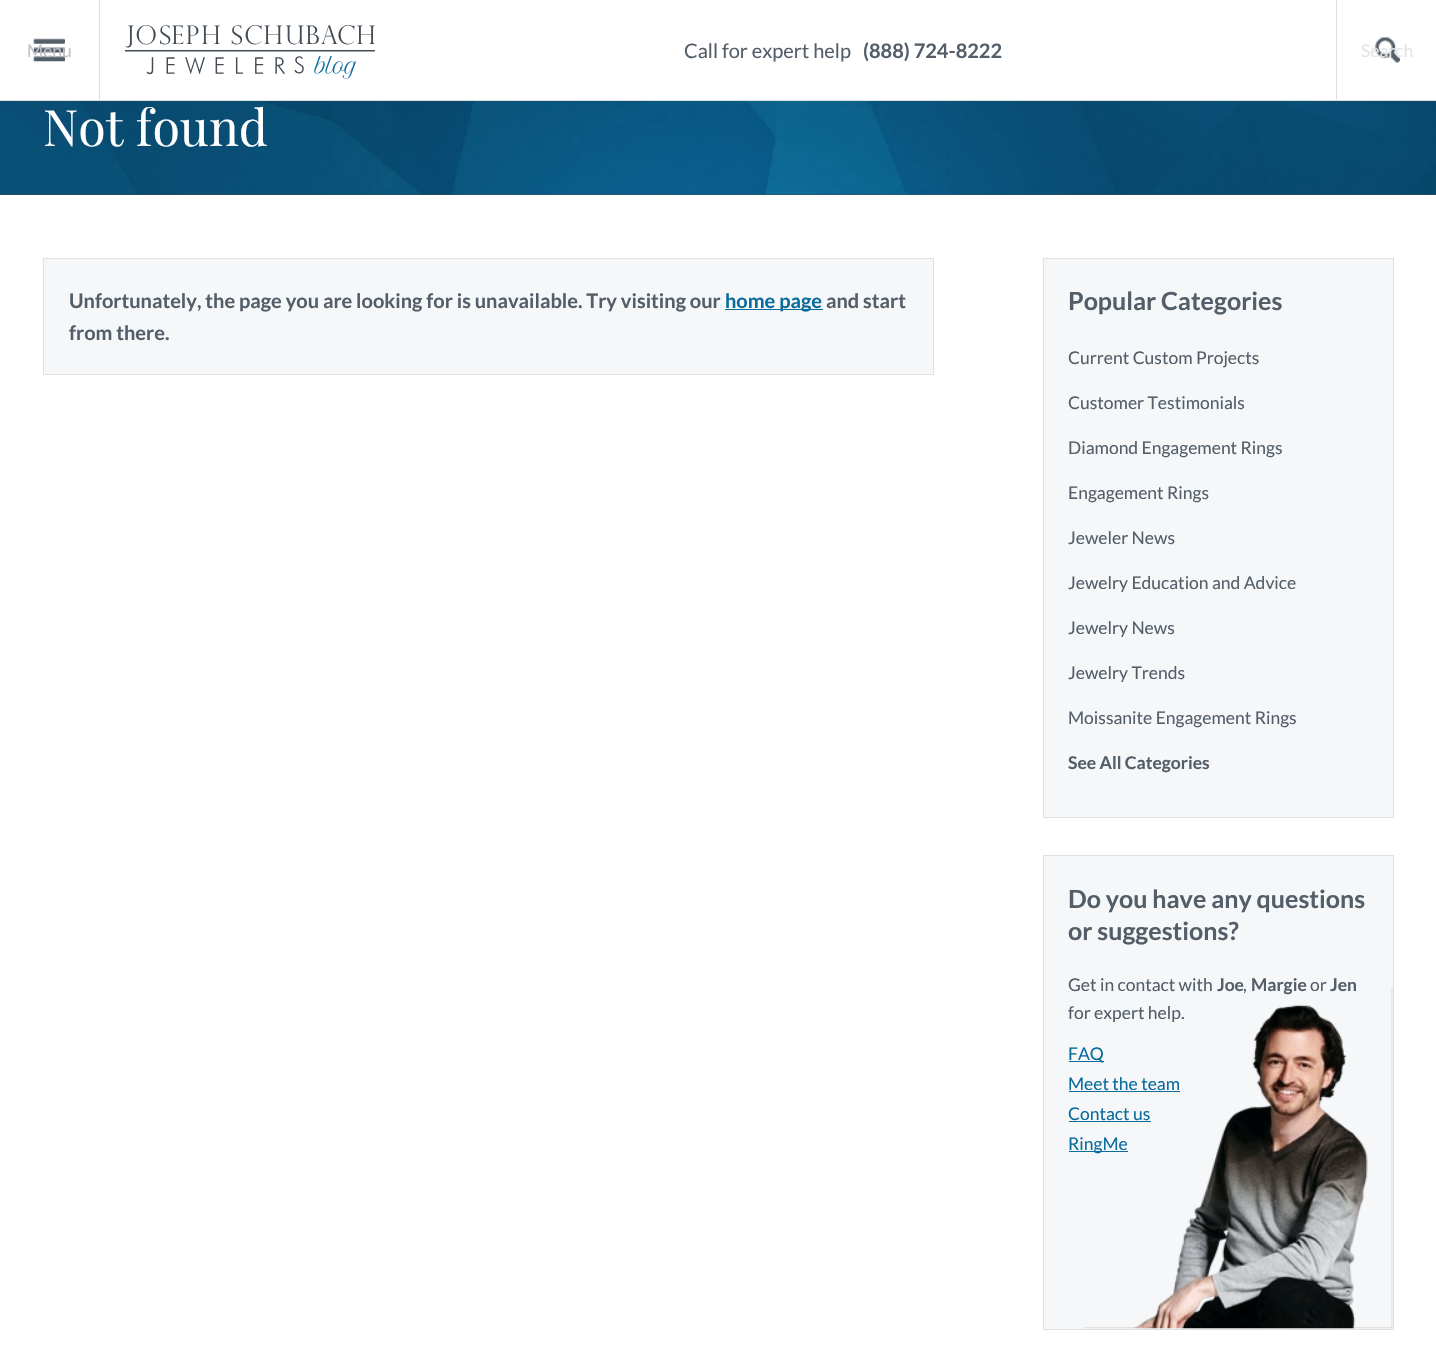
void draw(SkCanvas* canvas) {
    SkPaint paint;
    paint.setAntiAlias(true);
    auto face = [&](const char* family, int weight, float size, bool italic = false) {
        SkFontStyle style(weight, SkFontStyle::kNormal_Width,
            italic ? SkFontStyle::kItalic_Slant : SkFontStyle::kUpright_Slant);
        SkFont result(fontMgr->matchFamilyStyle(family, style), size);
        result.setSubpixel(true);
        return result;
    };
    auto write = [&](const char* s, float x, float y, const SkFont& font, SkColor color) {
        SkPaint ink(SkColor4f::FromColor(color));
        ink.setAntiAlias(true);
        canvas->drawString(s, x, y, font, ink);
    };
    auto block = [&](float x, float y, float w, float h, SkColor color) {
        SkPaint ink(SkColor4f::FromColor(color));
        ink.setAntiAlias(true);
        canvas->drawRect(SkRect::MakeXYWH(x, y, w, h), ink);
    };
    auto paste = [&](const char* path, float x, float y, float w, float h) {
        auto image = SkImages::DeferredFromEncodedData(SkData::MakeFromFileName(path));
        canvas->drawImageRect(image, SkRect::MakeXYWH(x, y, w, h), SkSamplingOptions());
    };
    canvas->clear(SK_ColorWHITE);
    block(0, 100, 1436, 1, SkColorSetRGB(224, 224, 224));
    paste("pic1.png", 33, 38, 32, 24);
    block(99, 0, 1, 100, SkColorSetRGB(224, 224, 224));
    auto kFont1 = face("Lato", 400, 17.5f);
    write("Menu", 27, 57, kFont1, SkColorSetRGB(190, 194, 199));
    paste("pic2.png", 125, 25, 250, 54);
    auto kFont2 = face("Lato", 400, 20);
    write("Call for expert help", 684, 58, kFont2, SkColorSetRGB(83, 94, 105));
    auto kFont3 = face("Lato", 700, 20);
    write("(888) 724-8222", 863, 58, kFont3, SkColorSetRGB(83, 94, 105));
    paste("pic3.png", 1375, 37, 25, 26);
    block(1336, 0, 1, 100, SkColorSetRGB(224, 224, 224));
    write("Search", 1361, 57, kFont1, SkColorSetRGB(227, 229, 230));
    block(0, 194, 1436, 1, SkColorSetRGB(66, 75, 84));
    paste("pic4.png", 0, 101, 1436, 94);
    auto kFont4 = face("Playfair Display", 400, 50);
    write("Not found", 43, 146, kFont4, SK_ColorWHITE);
    paint.setColor(SkColorSetRGB(245, 247, 249));
    canvas->drawRect(SkRect::MakeXYWH(43.5f, 258.5f, 890, 116), paint);
    paint.setStyle(SkPaint::kStroke_Style);
    paint.setStrokeWidth(1);
    paint.setColor(SkColorSetRGB(224, 224, 224));
    canvas->drawRect(SkRect::MakeXYWH(43.5f, 258.5f, 890, 116), paint);
    write("Unfortunately, the page you are looking for is unavailable. Try visiting our", 69, 308, kFont3, SkColorSetRGB(83, 94, 105));
    block(725, 309, 98, 1, SkColorSetRGB(10, 108, 157));
    write("home page", 725, 308, kFont3, SkColorSetRGB(10, 108, 157));
    write("and start", 826, 308, kFont3, SkColorSetRGB(83, 94, 105));
    write("from there.", 69, 340, kFont3, SkColorSetRGB(83, 94, 105));
    paint.setStyle(SkPaint::kFill_Style);
    paint.setColor(SkColorSetRGB(245, 247, 249));
    canvas->drawRect(SkRect::MakeXYWH(1043.5f, 258.5f, 350, 559), paint);
    paint.setStyle(SkPaint::kStroke_Style);
    paint.setColor(SkColorSetRGB(224, 224, 224));
    canvas->drawRect(SkRect::MakeXYWH(1043.5f, 258.5f, 350, 559), paint);
    auto kFont5 = face("Lato", 700, 25);
    write("Popular Categories", 1068, 310, kFont5, SkColorSetRGB(83, 94, 105));
    write("Current Custom Projects", 1068, 364, kFont1, SkColorSetRGB(83, 94, 105));
    write("Customer Testimonials", 1068, 409, kFont1, SkColorSetRGB(83, 94, 105));
    write("Diamond Engagement Rings", 1068, 454, kFont1, SkColorSetRGB(83, 94, 105));
    write("Engagement Rings", 1068, 499, kFont1, SkColorSetRGB(83, 94, 105));
    write("Jeweler News", 1068, 544, kFont1, SkColorSetRGB(83, 94, 105));
    write("Jewelry Education and Advice", 1068, 589, kFont1, SkColorSetRGB(83, 94, 105));
    write("Jewelry News", 1068, 634, kFont1, SkColorSetRGB(83, 94, 105));
    write("Jewelry Trends", 1068, 679, kFont1, SkColorSetRGB(83, 94, 105));
    write("Moissanite Engagement Rings", 1068, 724, kFont1, SkColorSetRGB(83, 94, 105));
    auto kFont6 = face("Lato", 700, 17.5f);
    write("See All Categories", 1068, 769, kFont6, SkColorSetRGB(83, 94, 105));
    block(1044, 856, 349, 473, SkColorSetRGB(245, 247, 249));
    paste("pic5.png", 1083, 987, 310, 342);
    canvas->drawRect(SkRect::MakeXYWH(1043.5f, 855.5f, 350, 474), paint);
    write("Do you have any questions", 1068, 908, kFont5, SkColorSetRGB(83, 94, 105));
    write("or suggestions?", 1068, 940, kFont5, SkColorSetRGB(83, 94, 105));
    write("Get in contact with", 1068, 991, kFont1, SkColorSetRGB(83, 94, 105));
    write("Joe", 1217, 991, kFont6, SkColorSetRGB(83, 94, 105));
    write(",", 1243, 991, kFont1, SkColorSetRGB(83, 94, 105));
    write("Margie", 1251, 991, kFont6, SkColorSetRGB(83, 94, 105));
    write("or", 1310, 991, kFont1, SkColorSetRGB(83, 94, 105));
    write("Jen", 1330, 991, kFont6, SkColorSetRGB(83, 94, 105));
    write("for expert help.", 1068, 1019, kFont1, SkColorSetRGB(83, 94, 105));
    block(1069, 1061, 35, 1, SkColorSetRGB(10, 108, 157));
    write("FAQ", 1068, 1060, kFont1, SkColorSetRGB(10, 108, 157));
    write("Meet the team", 1068, 1090, kFont1, SkColorSetRGB(10, 108, 157));
    block(1069, 1091, 111, 1, SkColorSetRGB(10, 108, 157));
    write("Contact us", 1068, 1120, kFont1, SkColorSetRGB(10, 108, 157));
    block(1069, 1121, 82, 1, SkColorSetRGB(10, 108, 157));
    block(1069, 1151, 59, 1, SkColorSetRGB(10, 108, 157));
    write("RingMe", 1068, 1150, kFont1, SkColorSetRGB(10, 108, 157));
}
